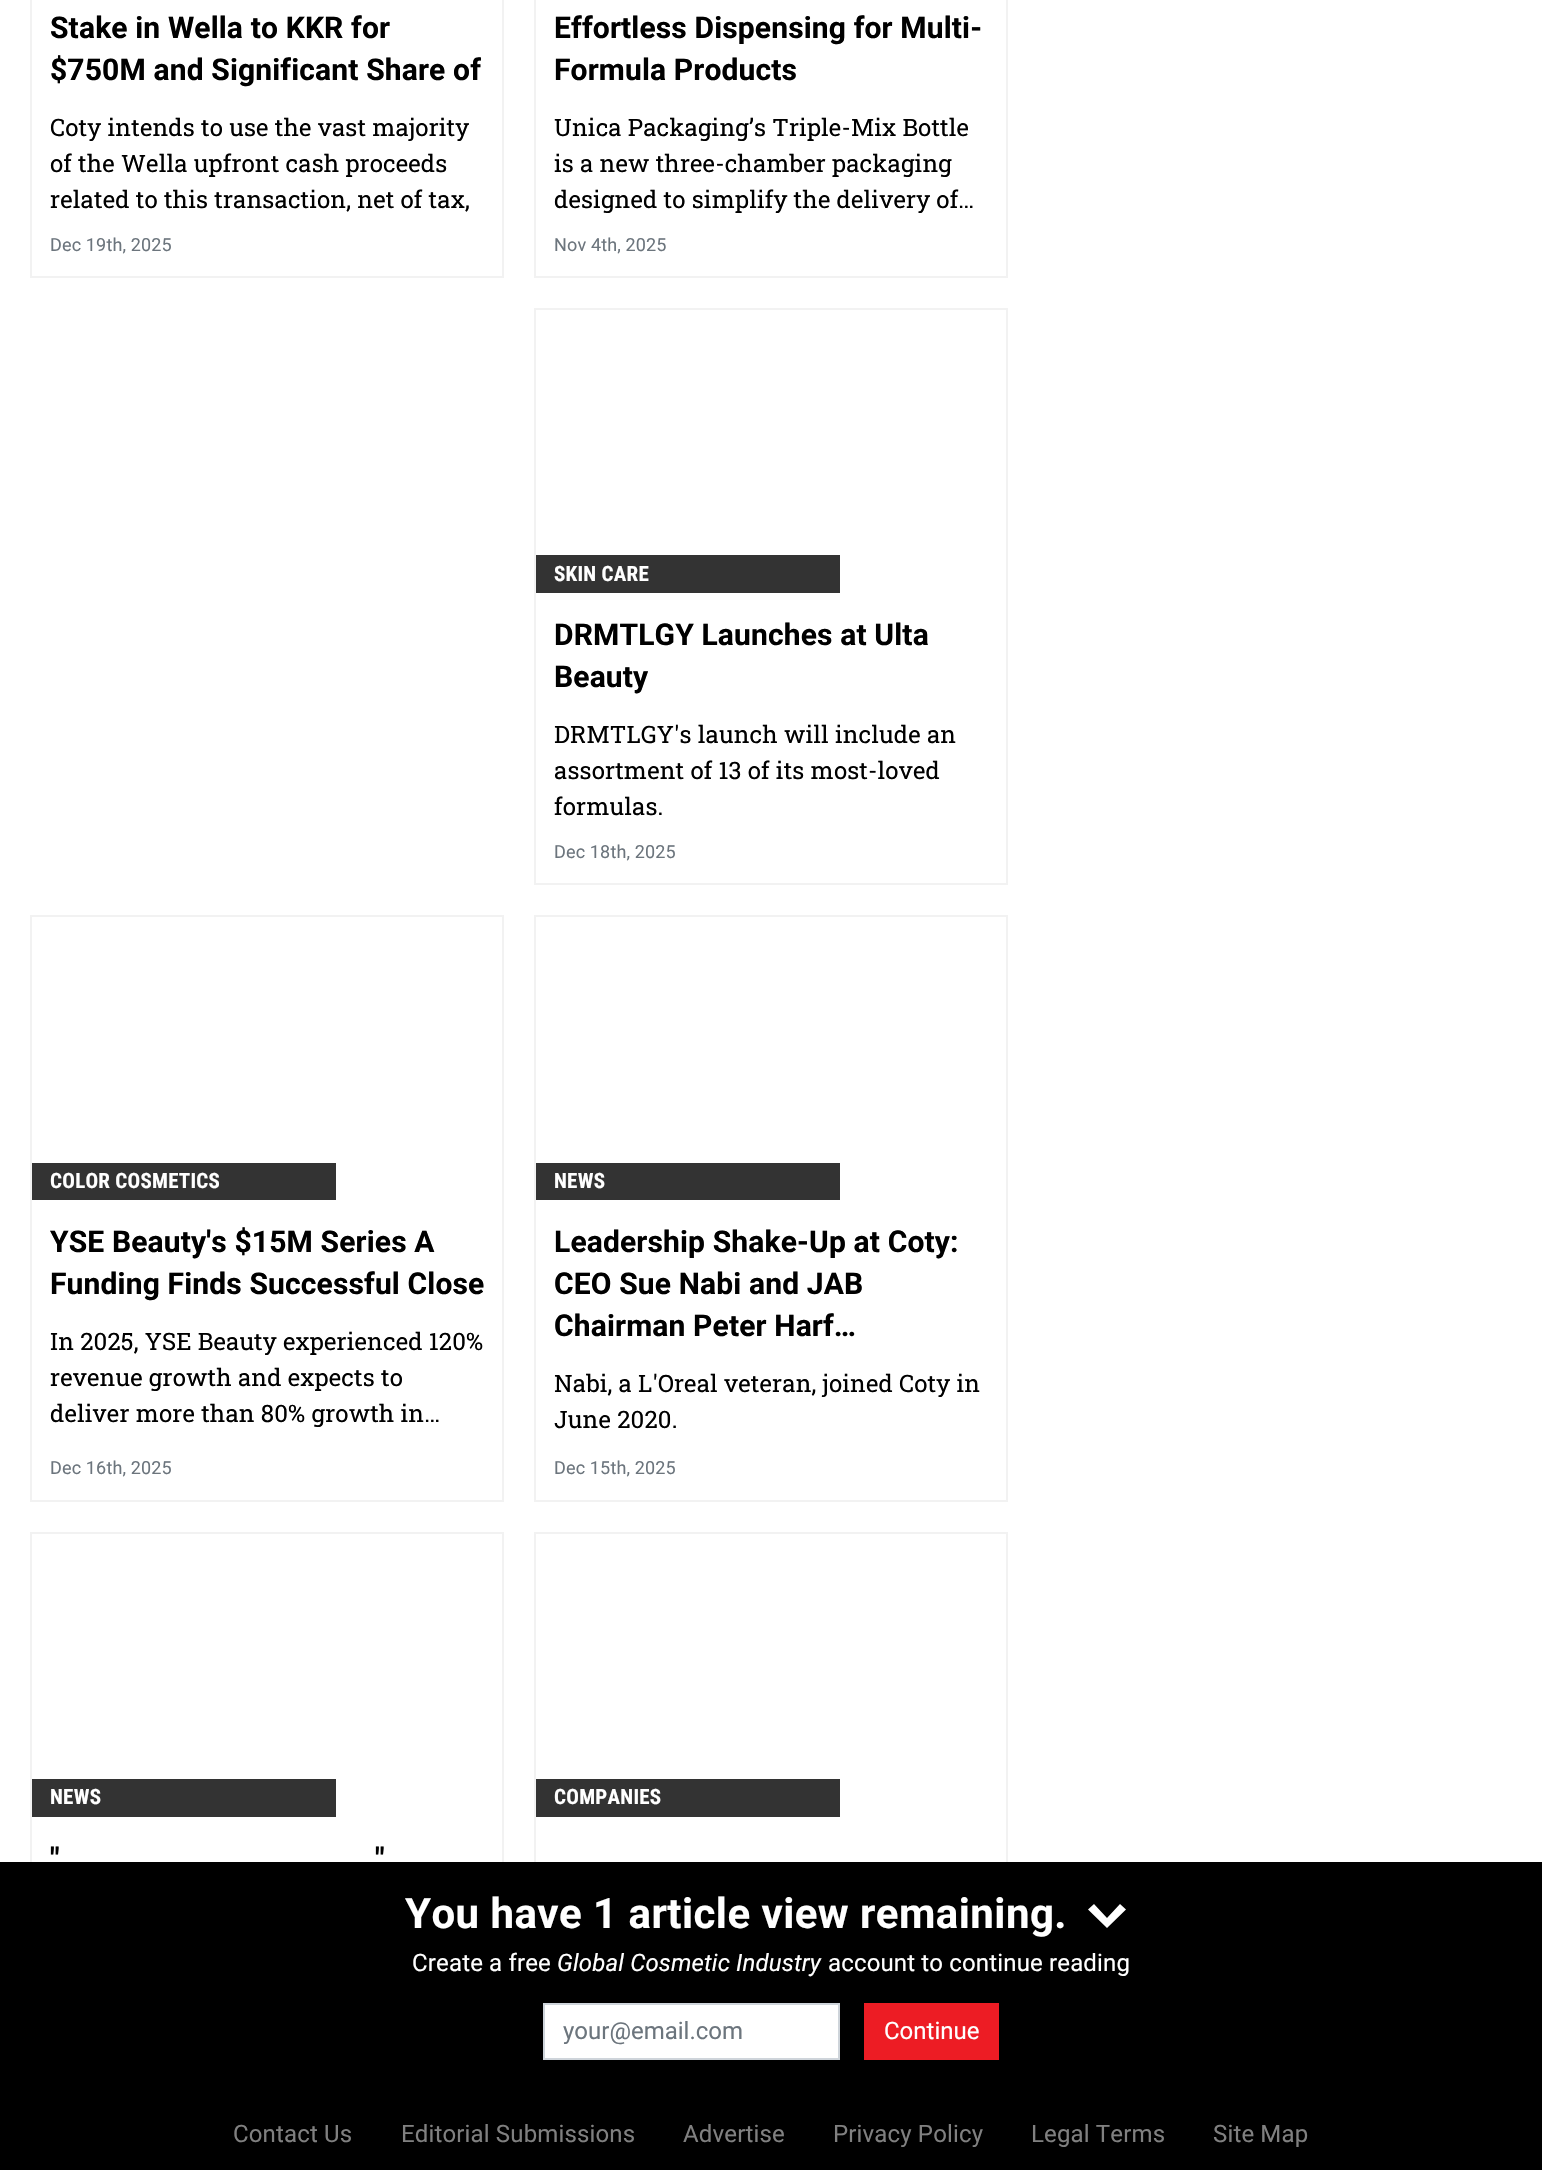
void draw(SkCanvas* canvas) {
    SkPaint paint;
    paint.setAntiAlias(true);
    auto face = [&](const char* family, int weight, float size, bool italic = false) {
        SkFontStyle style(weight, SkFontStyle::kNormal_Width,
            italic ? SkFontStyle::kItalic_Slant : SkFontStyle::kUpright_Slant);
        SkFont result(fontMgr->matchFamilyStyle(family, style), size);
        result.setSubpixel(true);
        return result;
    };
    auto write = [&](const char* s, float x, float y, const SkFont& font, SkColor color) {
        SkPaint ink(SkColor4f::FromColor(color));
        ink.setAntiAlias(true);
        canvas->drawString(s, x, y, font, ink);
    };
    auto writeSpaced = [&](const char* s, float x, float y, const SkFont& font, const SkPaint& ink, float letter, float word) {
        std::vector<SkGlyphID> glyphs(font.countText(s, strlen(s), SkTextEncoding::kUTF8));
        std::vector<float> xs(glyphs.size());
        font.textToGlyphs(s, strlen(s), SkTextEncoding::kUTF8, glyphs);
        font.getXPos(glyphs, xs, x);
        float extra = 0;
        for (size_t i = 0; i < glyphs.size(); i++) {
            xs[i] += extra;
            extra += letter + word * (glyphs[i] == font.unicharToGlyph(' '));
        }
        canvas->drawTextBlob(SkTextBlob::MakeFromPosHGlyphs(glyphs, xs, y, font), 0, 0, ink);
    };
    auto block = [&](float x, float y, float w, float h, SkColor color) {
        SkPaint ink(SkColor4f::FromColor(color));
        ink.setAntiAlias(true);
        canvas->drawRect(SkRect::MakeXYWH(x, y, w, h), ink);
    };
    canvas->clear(SK_ColorWHITE);
    paint.setStyle(SkPaint::kStroke_Style);
    paint.setStrokeWidth(2);
    paint.setColor(SkColorSetRGB(242, 242, 242));
    canvas->drawRect(SkRect::MakeXYWH(31, -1, 472, 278), paint);
    auto kFont1 = face("Roboto", 700, 30);
    paint.setStyle(SkPaint::kFill_Style);
    paint.setColor(SK_ColorBLACK);
    writeSpaced("Stake in Wella to KKR for", 50, 38, kFont1, paint, 0.15f, 0);
    writeSpaced("$750M and Significant Share of", 50, 80, kFont1, paint, 0.15f, 0);
    auto kFont2 = face("Roboto Slab", 400, 24);
    writeSpaced("Coty intends to use the vast majority", 50, 136, kFont2, paint, 0.15f, 0);
    writeSpaced("of the Wella upfront cash proceeds", 50, 172, kFont2, paint, 0.15f, 0);
    writeSpaced("related to this transaction, net of tax,", 50, 208, kFont2, paint, 0.15f, 0);
    auto kFont3 = face("Roboto", 400, 18);
    paint.setColor(SkColorSetRGB(108, 117, 125));
    writeSpaced("Dec 19th, 2025", 50, 251, kFont3, paint, 0.15f, 0);
    paint.setStyle(SkPaint::kStroke_Style);
    paint.setColor(SkColorSetRGB(242, 242, 242));
    canvas->drawRect(SkRect::MakeXYWH(535, -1, 472, 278), paint);
    paint.setStyle(SkPaint::kFill_Style);
    paint.setColor(SK_ColorBLACK);
    writeSpaced("Effortless Dispensing for Multi-", 554, 38, kFont1, paint, 0.15f, 0);
    writeSpaced("Formula Products", 554, 80, kFont1, paint, 0.15f, 0);
    writeSpaced("Unica Packaging’s Triple-Mix Bottle", 554, 136, kFont2, paint, 0.15f, 0);
    writeSpaced("is a new three-chamber packaging", 554, 172, kFont2, paint, 0.15f, 0);
    canvas->save();
    canvas->clipRect(SkRect::MakeXYWH(554, 108, 435, 105));
    writeSpaced("designed to simplify the delivery of…", 554, 208, kFont2, paint, 0.15f, 0);
    canvas->restore();
    paint.setColor(SkColorSetRGB(108, 117, 125));
    writeSpaced("Nov 4th, 2025", 554, 251, kFont3, paint, 0.15f, 0);
    paint.setStyle(SkPaint::kStroke_Style);
    paint.setColor(SkColorSetRGB(242, 242, 242));
    canvas->drawRect(SkRect::MakeXYWH(535, 309, 472, 575), paint);
    block(536, 555, 304, 38, SkColorSetRGB(51, 51, 51));
    auto kFont4 = face("Roboto Condensed", 700, 21);
    paint.setStyle(SkPaint::kFill_Style);
    paint.setColor(SK_ColorWHITE);
    writeSpaced("SKIN CARE", 554, 581, kFont4, paint, 0.25f, 0);
    paint.setColor(SK_ColorBLACK);
    writeSpaced("DRMTLGY Launches at Ulta", 554, 645, kFont1, paint, 0.15f, 0);
    writeSpaced("Beauty", 554, 687, kFont1, paint, 0.15f, 0);
    writeSpaced("DRMTLGY's launch will include an", 554, 743, kFont2, paint, 0.15f, 0);
    writeSpaced("assortment of 13 of its most-loved", 554, 779, kFont2, paint, 0.15f, 0);
    writeSpaced("formulas.", 554, 815, kFont2, paint, 0.15f, 0);
    paint.setColor(SkColorSetRGB(108, 117, 125));
    writeSpaced("Dec 18th, 2025", 554, 858, kFont3, paint, 0.15f, 0);
    paint.setStyle(SkPaint::kStroke_Style);
    paint.setColor(SkColorSetRGB(242, 242, 242));
    canvas->drawRect(SkRect::MakeXYWH(31, 916, 472, 585), paint);
    block(32, 1163, 304, 37, SkColorSetRGB(51, 51, 51));
    paint.setStyle(SkPaint::kFill_Style);
    paint.setColor(SK_ColorWHITE);
    writeSpaced("COLOR COSMETICS", 50, 1188, kFont4, paint, 0.25f, 0);
    paint.setColor(SK_ColorBLACK);
    writeSpaced("YSE Beauty's $15M Series A", 50, 1252, kFont1, paint, 0.15f, 0);
    writeSpaced("Funding Finds Successful Close", 50, 1294, kFont1, paint, 0.15f, 0);
    writeSpaced("In 2025, YSE Beauty experienced 120%", 50, 1350, kFont2, paint, 0.15f, 0);
    writeSpaced("revenue growth and expects to", 50, 1386, kFont2, paint, 0.15f, 0);
    writeSpaced("deliver more than 80% growth in…", 50, 1422, kFont2, paint, 0.15f, 0);
    paint.setColor(SkColorSetRGB(108, 117, 125));
    writeSpaced("Dec 16th, 2025", 50, 1474, kFont3, paint, 0.15f, 0);
    paint.setStyle(SkPaint::kStroke_Style);
    paint.setColor(SkColorSetRGB(242, 242, 242));
    canvas->drawRect(SkRect::MakeXYWH(535, 916, 472, 585), paint);
    block(536, 1163, 304, 37, SkColorSetRGB(51, 51, 51));
    paint.setStyle(SkPaint::kFill_Style);
    paint.setColor(SK_ColorWHITE);
    writeSpaced("NEWS", 554, 1188, kFont4, paint, 0.25f, 0);
    paint.setColor(SK_ColorBLACK);
    writeSpaced("Leadership Shake-Up at Coty:", 554, 1252, kFont1, paint, 0.15f, 0);
    writeSpaced("CEO Sue Nabi and JAB", 554, 1294, kFont1, paint, 0.15f, 0);
    writeSpaced("Chairman Peter Harf…", 554, 1336, kFont1, paint, 0.15f, 0);
    writeSpaced("Nabi, a L'Oreal veteran, joined Coty in", 554, 1392, kFont2, paint, 0.15f, 0);
    writeSpaced("June 2020.", 554, 1428, kFont2, paint, 0.15f, 0);
    paint.setColor(SkColorSetRGB(108, 117, 125));
    writeSpaced("Dec 15th, 2025", 554, 1474, kFont3, paint, 0.15f, 0);
    paint.setStyle(SkPaint::kStroke_Style);
    paint.setColor(SkColorSetRGB(242, 242, 242));
    canvas->drawRect(SkRect::MakeXYWH(31, 1533, 472, 617), paint);
    block(32, 1779, 304, 38, SkColorSetRGB(51, 51, 51));
    paint.setStyle(SkPaint::kFill_Style);
    paint.setColor(SK_ColorWHITE);
    writeSpaced("NEWS", 50, 1804, kFont4, paint, 0.25f, 0);
    paint.setColor(SK_ColorBLACK);
    writeSpaced("\"", 50, 1869, kFont1, paint, 0.15f, 0);
    writeSpaced("\"", 375, 1869, kFont1, paint, 0.15f, 0);
    paint.setStyle(SkPaint::kStroke_Style);
    paint.setColor(SkColorSetRGB(242, 242, 242));
    canvas->drawRect(SkRect::MakeXYWH(535, 1533, 472, 617), paint);
    block(536, 1779, 304, 38, SkColorSetRGB(51, 51, 51));
    paint.setStyle(SkPaint::kFill_Style);
    paint.setColor(SK_ColorWHITE);
    writeSpaced("COMPANIES", 554, 1804, kFont4, paint, 0.25f, 0);
    block(0, 1862, 1542, 308, SK_ColorBLACK);
    auto kFont5 = face("Roboto", 700, 42);
    writeSpaced("You have 1 article view remaining.", 405, 1928, kFont5, paint, 0.45f, 0);
    canvas->drawPath(SkPathBuilder(SkPathFillType::kEvenOdd).moveTo(1107, 1928).lineTo(1088, 1909.5f).lineTo(1094, 1904).lineTo(1107, 1918).lineTo(1120, 1904).lineTo(1126, 1909.5f).close().detach(), paint);
    auto kFont6 = face("Roboto", 400, 24);
    writeSpaced("Create a free", 412, 1971, kFont6, paint, 0.15f, 0);
    auto kFont7 = face("Roboto", 400, 24, true);
    writeSpaced("Global Cosmetic Industry", 557, 1971, kFont7, paint, 0.15f, 0);
    writeSpaced("account to continue reading", 828, 1971, kFont6, paint, 0.15f, 0);
    canvas->drawRect(SkRect::MakeXYWH(544, 2004, 295, 55), paint);
    paint.setStyle(SkPaint::kStroke_Style);
    paint.setColor(SkColorSetRGB(206, 212, 218));
    canvas->drawRect(SkRect::MakeXYWH(544, 2004, 295, 55), paint);
    write("your@email.com", 563, 2039, kFont6, SkColorSetRGB(108, 117, 125));
    block(864, 2003, 135, 57, SkColorSetRGB(237, 28, 36));
    write("Continue", 884, 2039, kFont6, SK_ColorWHITE);
    paint.setStyle(SkPaint::kFill_Style);
    paint.setColor(SkColorSetRGB(128, 128, 128));
    writeSpaced("Contact Us", 233, 2142, kFont6, paint, 0.15f, 0);
    writeSpaced("Editorial Submissions", 401, 2142, kFont6, paint, 0.15f, 0);
    writeSpaced("Advertise", 683, 2142, kFont6, paint, 0.15f, 0);
    writeSpaced("Privacy Policy", 833, 2142, kFont6, paint, 0.15f, 0);
    writeSpaced("Legal Terms", 1031, 2142, kFont6, paint, 0.15f, 0);
    writeSpaced("Site Map", 1213, 2142, kFont6, paint, 0.15f, 0);
}
